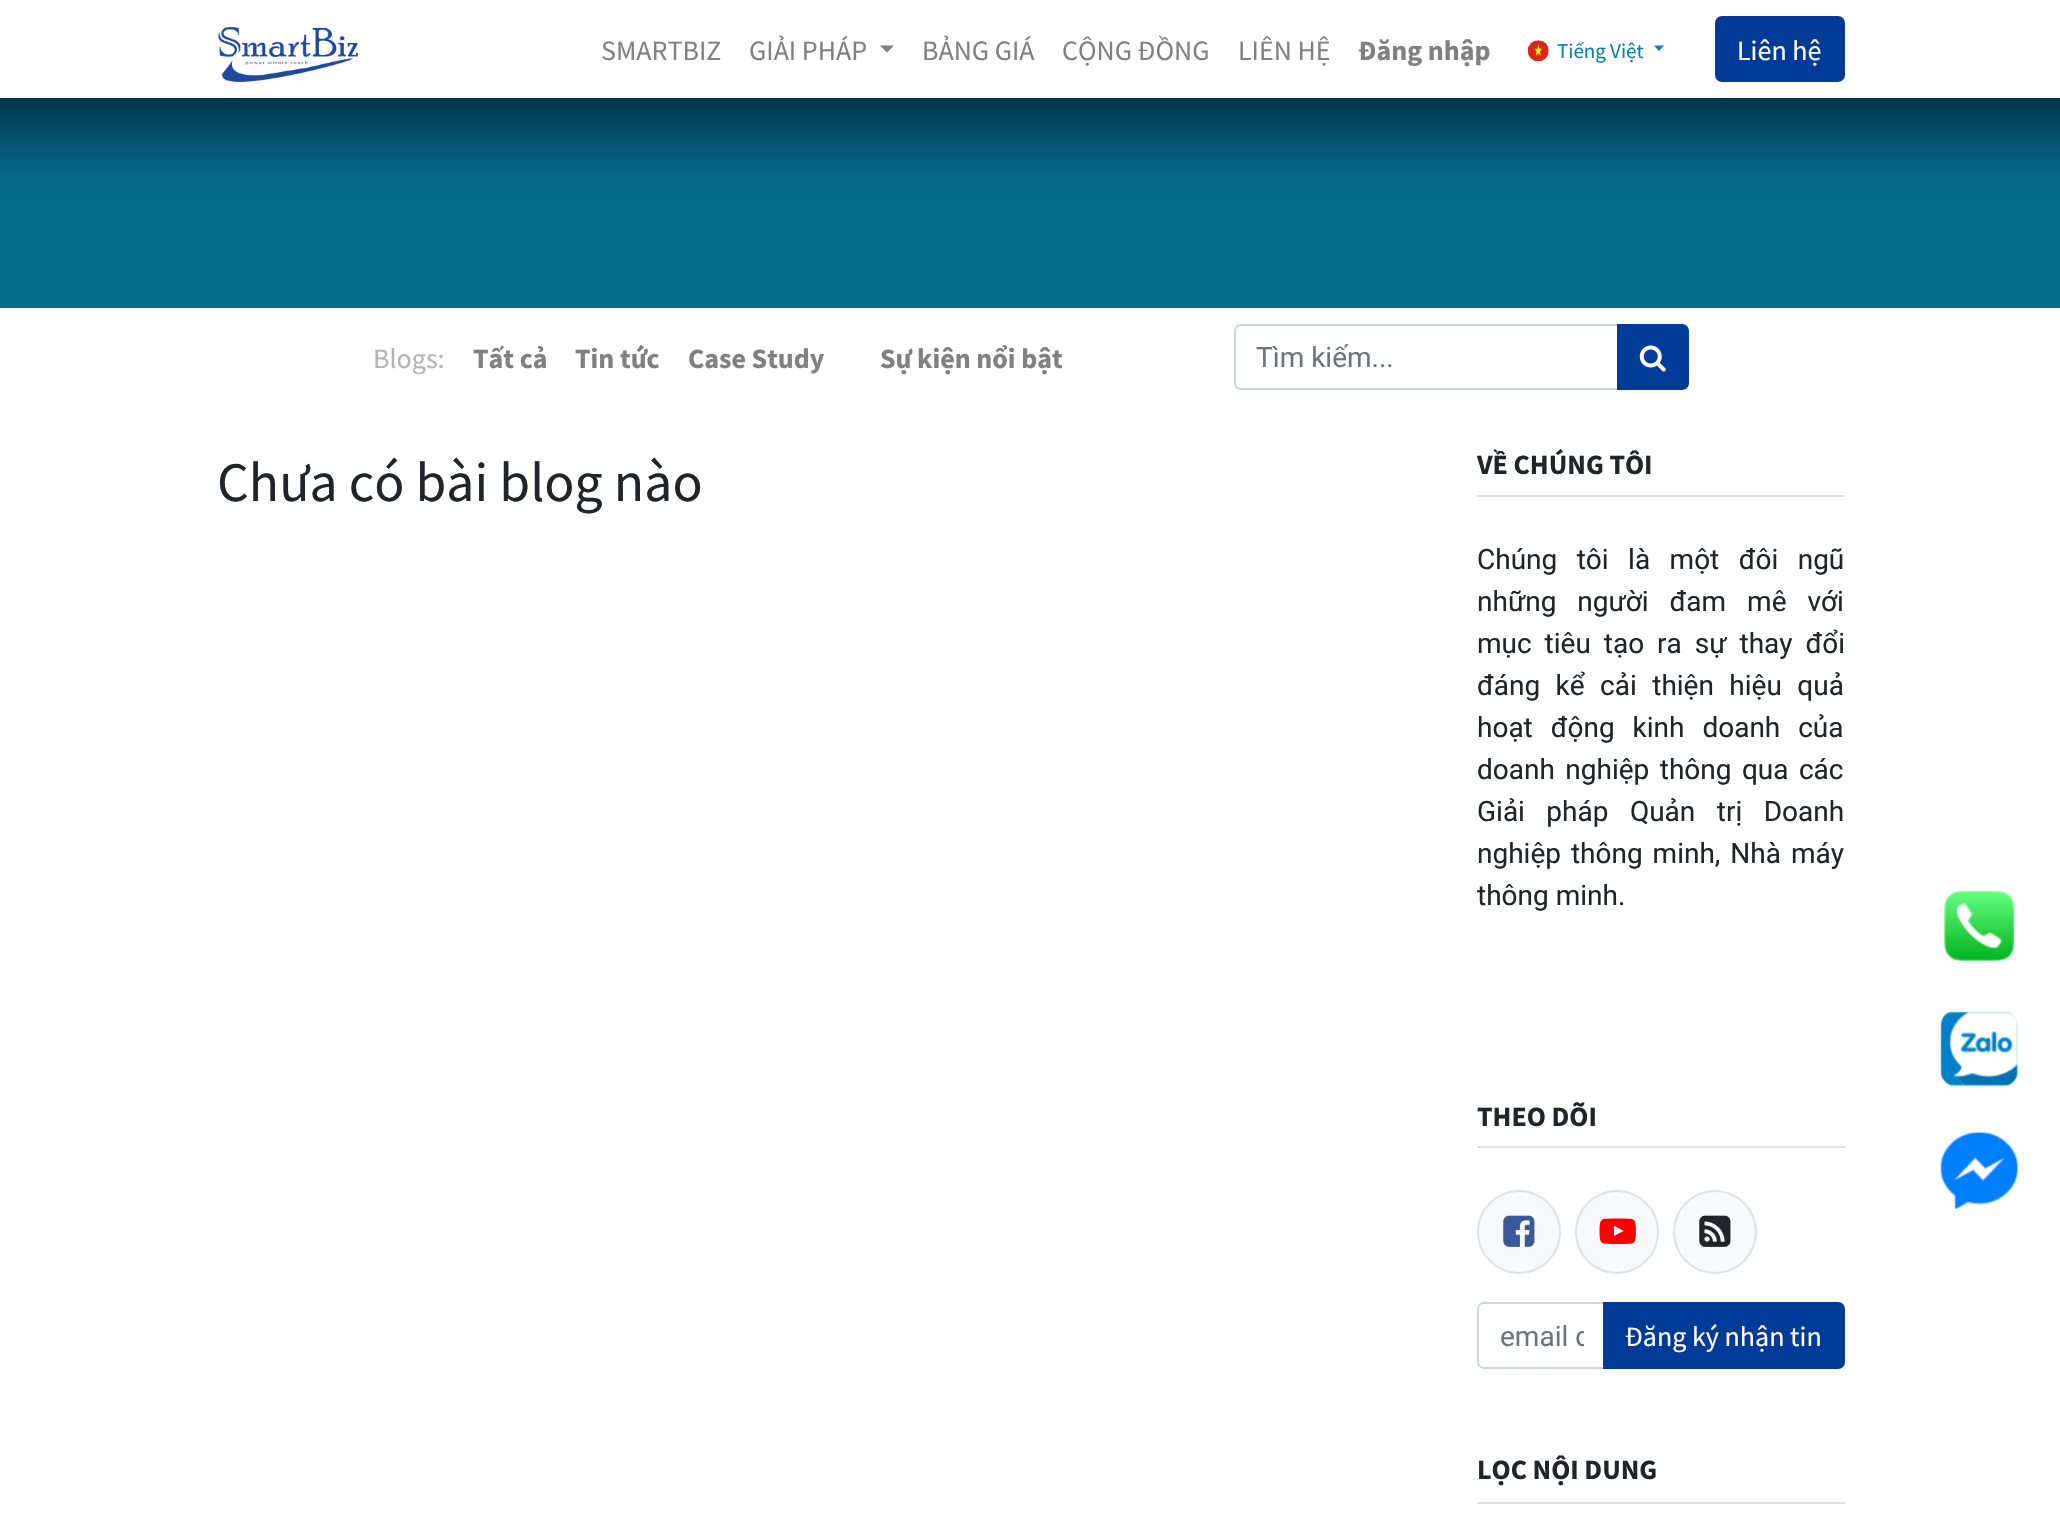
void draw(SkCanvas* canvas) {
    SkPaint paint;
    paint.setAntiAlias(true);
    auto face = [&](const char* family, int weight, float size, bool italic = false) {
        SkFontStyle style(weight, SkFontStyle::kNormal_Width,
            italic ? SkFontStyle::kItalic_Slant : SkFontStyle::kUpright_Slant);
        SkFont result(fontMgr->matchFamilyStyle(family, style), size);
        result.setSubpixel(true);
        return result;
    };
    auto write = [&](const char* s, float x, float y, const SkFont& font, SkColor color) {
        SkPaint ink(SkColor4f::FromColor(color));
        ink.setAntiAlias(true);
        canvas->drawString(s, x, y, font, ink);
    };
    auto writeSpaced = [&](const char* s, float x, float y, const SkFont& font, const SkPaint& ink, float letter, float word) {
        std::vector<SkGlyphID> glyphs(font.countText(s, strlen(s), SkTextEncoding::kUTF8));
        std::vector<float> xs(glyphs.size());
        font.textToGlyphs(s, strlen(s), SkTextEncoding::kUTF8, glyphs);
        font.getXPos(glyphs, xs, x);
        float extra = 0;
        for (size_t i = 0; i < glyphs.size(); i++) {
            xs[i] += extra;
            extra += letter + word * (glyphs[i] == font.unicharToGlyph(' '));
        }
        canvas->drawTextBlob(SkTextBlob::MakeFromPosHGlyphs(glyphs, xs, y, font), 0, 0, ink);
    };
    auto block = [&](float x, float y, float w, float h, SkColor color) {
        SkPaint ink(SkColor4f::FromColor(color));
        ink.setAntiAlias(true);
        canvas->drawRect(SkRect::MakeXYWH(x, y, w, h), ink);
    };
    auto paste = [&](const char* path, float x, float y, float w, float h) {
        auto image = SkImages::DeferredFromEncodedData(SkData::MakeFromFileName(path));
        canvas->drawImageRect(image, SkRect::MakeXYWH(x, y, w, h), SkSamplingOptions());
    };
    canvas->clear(SK_ColorWHITE);
    paste("pic1.png", 218, 26, 140, 57);
    auto kFont1 = face("Source Sans Pro", 400, 28);
    write("SMARTBIZ", 601, 60, kFont1, SkColorSetRGB(128, 128, 128));
    write("GIẢI PHÁP", 749, 60, kFont1, SkColorSetRGB(128, 128, 128));
    paint.setColor(SkColorSetRGB(128, 128, 128));
    canvas->drawPath(SkPathBuilder().moveTo(880, 45.5f).lineTo(894, 45.5f).lineTo(887, 52.5f).close().detach(), paint);
    write("BẢNG GIÁ", 922, 60, kFont1, SkColorSetRGB(128, 128, 128));
    write("CỘNG ĐỒNG", 1062, 60, kFont1, SkColorSetRGB(128, 128, 128));
    write("LIÊN HỆ", 1238, 60, kFont1, SkColorSetRGB(128, 128, 128));
    auto kFont2 = face("Source Sans Pro", 700, 28);
    write("Đăng nhập", 1358, 60, kFont2, SkColorSetRGB(128, 128, 128));
    paste("pic2.png", 1527, 40, 22, 22);
    auto kFont3 = face("Source Sans Pro", 400, 21);
    write("Tiếng Việt", 1557, 58, kFont3, SkColorSetRGB(7, 130, 171));
    paint.setColor(SkColorSetRGB(7, 130, 171));
    canvas->drawPath(SkPathBuilder().moveTo(1654, 45.5f).lineTo(1664, 45.5f).lineTo(1659, 51).close().detach(), paint);
    paint.setColor(SkColorSetRGB(2, 59, 151));
    canvas->drawRoundRect(SkRect::MakeXYWH(1716, 17, 128, 64), 6, 6, paint);
    paint.setStyle(SkPaint::kStroke_Style);
    paint.setStrokeWidth(2);
    canvas->drawRoundRect(SkRect::MakeXYWH(1716, 17, 128, 64), 6, 6, paint);
    write("Liên hệ", 1737, 60, kFont1, SK_ColorWHITE);
    block(0, 203, 2060, 105, SkColorSetRGB(6, 107, 140));
    paint.setStyle(SkPaint::kFill_Style);
    {
        const SkColor colors[] = {SkColorSetRGB(3, 53, 71), SkColorSetRGB(3, 67, 89), SkColorSetRGB(4, 78, 103), SkColorSetRGB(5, 86, 114), SkColorSetRGB(5, 92, 121), SkColorSetRGB(5, 96, 127), SkColorSetRGB(6, 100, 132), SkColorSetRGB(6, 103, 135), SkColorSetRGB(6, 104, 138), SkColorSetRGB(6, 106, 139), SkColorSetRGB(6, 106, 140), SkColorSetRGB(6, 107, 141), SkColorSetRGB(6, 107, 141)};
        const float stops[] = {0, 0.19f, 0.34f, 0.47f, 0.56f, 0.65f, 0.73f, 0.8f, 0.86f, 0.91f, 0.95f, 0.98f, 1};
        const SkPoint ends[] = {{1031, 98}, {1031, 203}};
        paint.setShader(SkGradientShader::MakeLinear(ends, colors, stops, 13, SkTileMode::kClamp));
        paint.setAlpha(255);
    }
    canvas->drawRect(SkRect::MakeXYWH(0, 98, 2060, 105), paint);
    write("Blogs:", 373, 368, kFont1, SkColorSetRGB(179, 179, 179));
    write("Tất cả", 473, 368, kFont2, SkColorSetRGB(128, 128, 128));
    write("Tin tức", 575, 368, kFont2, SkColorSetRGB(128, 128, 128));
    write("Case Study", 688, 368, kFont2, SkColorSetRGB(128, 128, 128));
    write("Sự kiện nổi bật", 880, 368, kFont2, SkColorSetRGB(128, 128, 128));
    paint.setStyle(SkPaint::kStroke_Style);
    paint.setShader(nullptr);
    paint.setColor(SkColorSetRGB(206, 212, 218));
    canvas->drawPath(SkPathBuilder().moveTo(1241, 325).lineTo(1618, 325).lineTo(1618, 389).lineTo(1241, 389).cubicTo(1237.5f, 389, 1235, 386.5f, 1235, 383).lineTo(1235, 331).cubicTo(1235, 327.5f, 1237.5f, 325, 1241, 325).close().detach(), paint);
    auto kFont4 = face("Roboto", 400, 28);
    write("Tìm kiếm...", 1256, 367, kFont4, SkColorSetRGB(108, 117, 125));
    paint.setStyle(SkPaint::kFill_Style);
    paint.setColor(SkColorSetRGB(2, 59, 151));
    canvas->drawPath(SkPathBuilder().moveTo(1618, 325).lineTo(1682, 325).cubicTo(1685.5f, 325, 1688, 327.5f, 1688, 331).lineTo(1688, 383).cubicTo(1688, 386.5f, 1685.5f, 389, 1682, 389).lineTo(1618, 389).close().detach(), paint);
    paint.setStyle(SkPaint::kStroke_Style);
    canvas->drawPath(SkPathBuilder().moveTo(1618, 325).lineTo(1682, 325).cubicTo(1685.5f, 325, 1688, 327.5f, 1688, 331).lineTo(1688, 383).cubicTo(1688, 386.5f, 1685.5f, 389, 1682, 389).lineTo(1618, 389).close().detach(), paint);
    paste("pic3.png", 1639, 345, 27, 27);
    auto kFont5 = face("Source Sans Pro", 400, 55.75f);
    write("Chưa có bài blog nào", 217, 501, kFont5, SkColorSetRGB(33, 37, 41));
    block(1477, 495, 368, 2, SkColorSetRGB(222, 226, 230));
    write("VỀ CHÚNG TÔI", 1477, 474, kFont2, SkColorSetRGB(33, 37, 41));
    paint.setStyle(SkPaint::kFill_Style);
    paint.setColor(SkColorSetRGB(33, 37, 41));
    writeSpaced("Chúng tôi là một đôi ngũ", 1477, 569, kFont4, paint, 0, 12.5f);
    writeSpaced("những người đam mê với", 1477, 611, kFont4, paint, 0, 14);
    writeSpaced("mục tiêu tạo ra sự thay đổi", 1477, 653, kFont4, paint, 0, 6);
    writeSpaced("đáng kể cải thiện hiệu quả", 1477, 695, kFont4, paint, 0, 8.5f);
    writeSpaced("hoạt động kinh doanh của", 1477, 737, kFont4, paint, 0, 11);
    writeSpaced("doanh nghiệp thông qua các", 1477, 779, kFont4, paint, 0, 3.5f);
    writeSpaced("Giải pháp Quản trị Doanh", 1477, 821, kFont4, paint, 0, 14.5f);
    writeSpaced("nghiệp thông minh, Nhà máy", 1477, 863, kFont4, paint, 0, 3);
    write("thông minh.", 1477, 905, kFont4, SkColorSetRGB(33, 37, 41));
    block(1477, 1146, 368, 2, SkColorSetRGB(222, 226, 230));
    write("THEO DÕI", 1477, 1126, kFont2, SkColorSetRGB(33, 37, 41));
    paint.setColor(SkColorSetRGB(248, 249, 250));
    canvas->drawCircle(1519, 1232, 41, paint);
    paint.setStyle(SkPaint::kStroke_Style);
    paint.setColor(SkColorSetRGB(222, 226, 230));
    canvas->drawCircle(1519, 1232, 41, paint);
    paste("pic4.png", 1503, 1215, 32, 32);
    paint.setStyle(SkPaint::kFill_Style);
    paint.setColor(SkColorSetRGB(248, 249, 250));
    canvas->drawCircle(1617, 1232, 41, paint);
    paint.setStyle(SkPaint::kStroke_Style);
    paint.setColor(SkColorSetRGB(222, 226, 230));
    canvas->drawCircle(1617, 1232, 41, paint);
    paste("pic5.png", 1599, 1218, 37, 27);
    paint.setStyle(SkPaint::kFill_Style);
    paint.setColor(SkColorSetRGB(248, 249, 250));
    canvas->drawCircle(1715, 1232, 41, paint);
    paint.setStyle(SkPaint::kStroke_Style);
    paint.setColor(SkColorSetRGB(222, 226, 230));
    canvas->drawCircle(1715, 1232, 41, paint);
    paste("pic6.png", 1699, 1215, 32, 32);
    paint.setColor(SkColorSetRGB(206, 212, 218));
    canvas->drawPath(SkPathBuilder().moveTo(1484, 1303).lineTo(1606, 1303).lineTo(1606, 1368).lineTo(1484, 1368).cubicTo(1480.5f, 1368, 1478, 1365.5f, 1478, 1362).lineTo(1478, 1309).cubicTo(1478, 1305.5f, 1480.5f, 1303, 1484, 1303).close().detach(), paint);
    canvas->save();
    canvas->clipRect(SkRect::MakeXYWH(1500, 1320, 84, 33));
    write("email c", 1500, 1346, kFont4, SkColorSetRGB(108, 117, 125));
    canvas->restore();
    paint.setStyle(SkPaint::kFill_Style);
    paint.setColor(SkColorSetRGB(2, 59, 151));
    canvas->drawPath(SkPathBuilder().moveTo(1604, 1303).lineTo(1838, 1303).cubicTo(1841.5f, 1303, 1844, 1305.5f, 1844, 1309).lineTo(1844, 1362).cubicTo(1844, 1365.5f, 1841.5f, 1368, 1838, 1368).lineTo(1604, 1368).close().detach(), paint);
    paint.setStyle(SkPaint::kStroke_Style);
    canvas->drawPath(SkPathBuilder().moveTo(1604, 1303).lineTo(1838, 1303).cubicTo(1841.5f, 1303, 1844, 1305.5f, 1844, 1309).lineTo(1844, 1362).cubicTo(1844, 1365.5f, 1841.5f, 1368, 1838, 1368).lineTo(1604, 1368).close().detach(), paint);
    write("Đăng ký nhận tin", 1625, 1346, kFont1, SK_ColorWHITE);
    block(1477, 1502, 368, 2, SkColorSetRGB(222, 226, 230));
    write("LỌC NỘI DUNG", 1477, 1479, kFont2, SkColorSetRGB(33, 37, 41));
    paste("pic7.png", 1944, 890, 71, 71);
    paste("pic8.png", 1940, 1011, 79, 76);
    paste("pic9.png", 1940, 1131, 79, 79);
}
